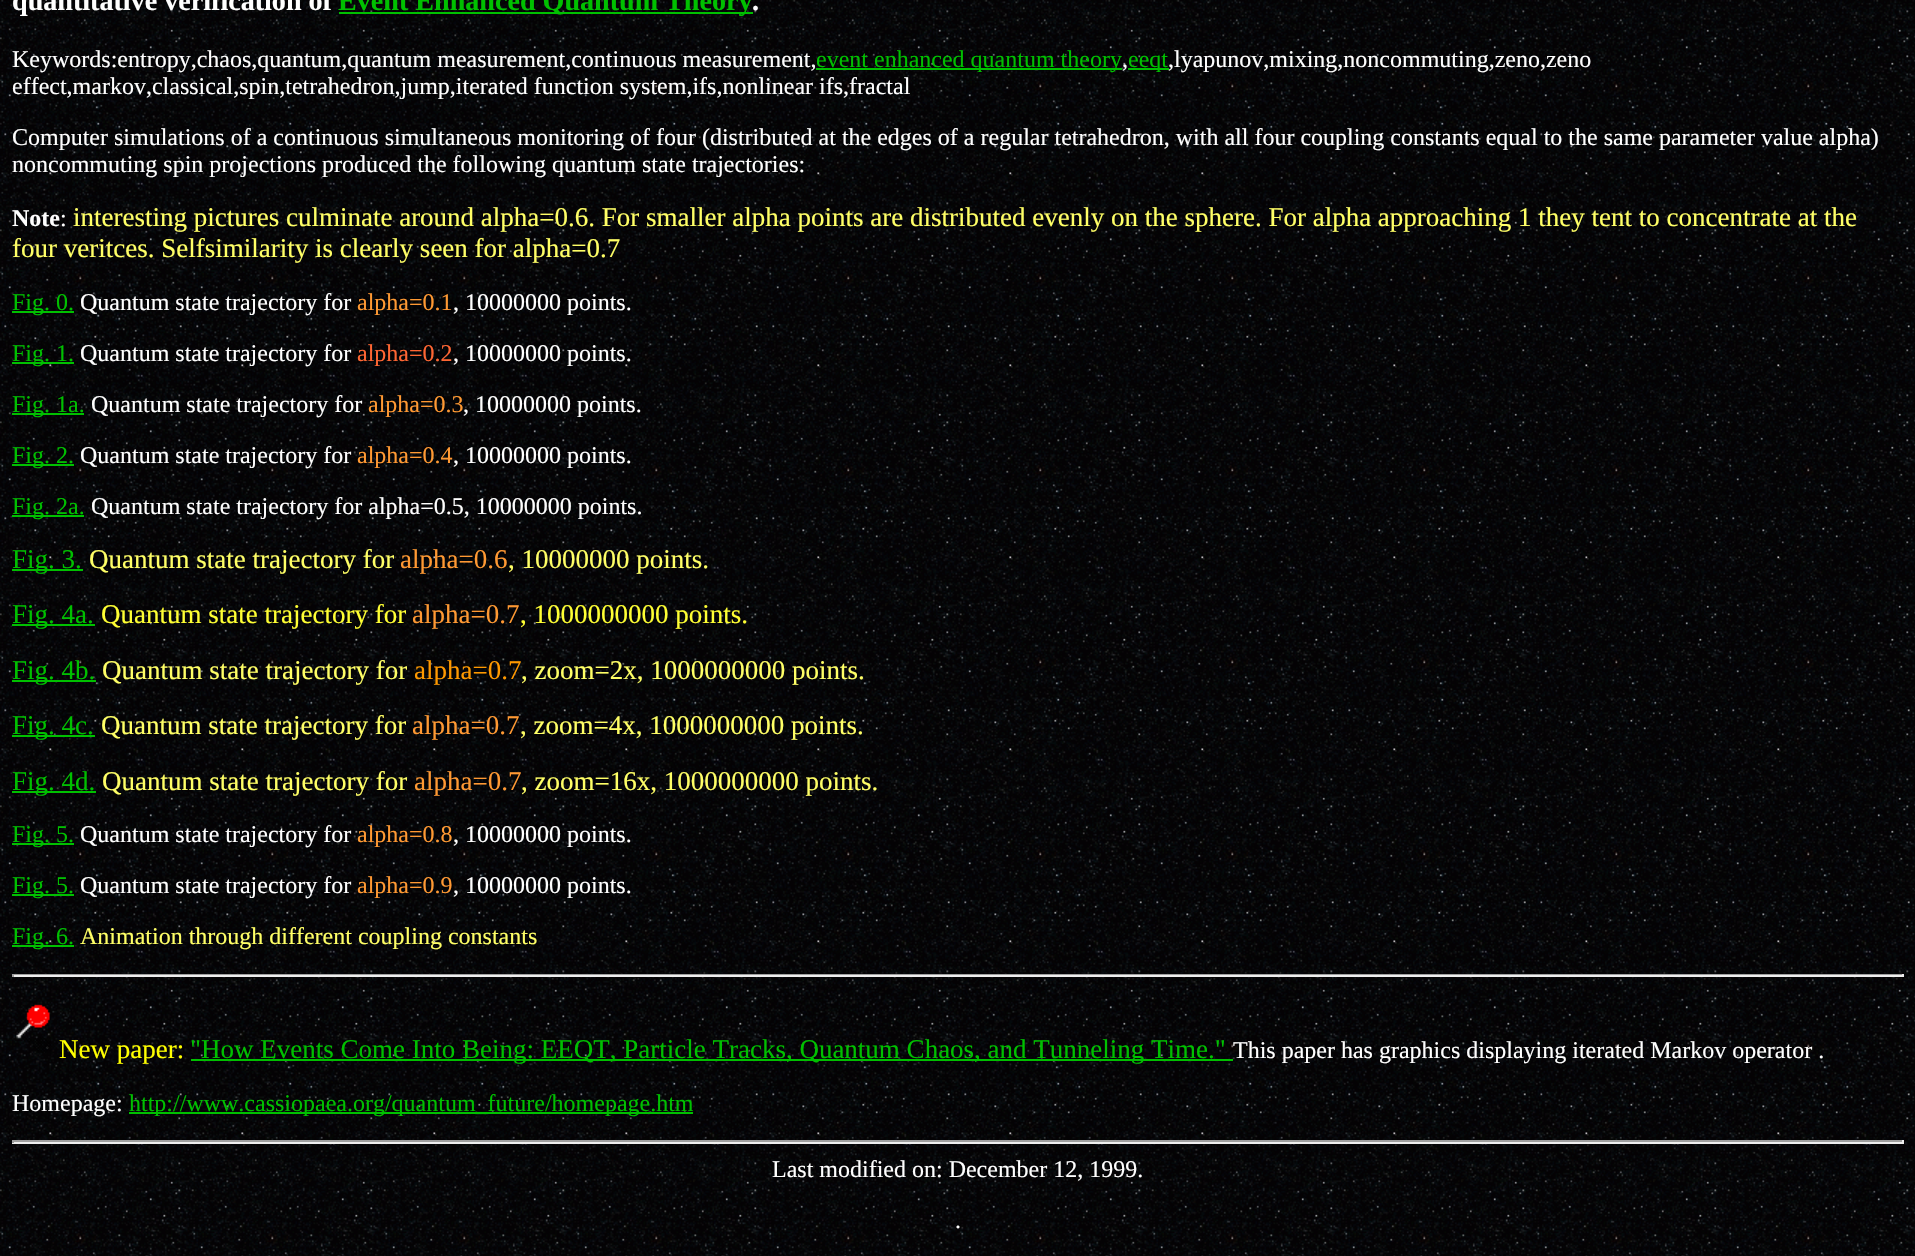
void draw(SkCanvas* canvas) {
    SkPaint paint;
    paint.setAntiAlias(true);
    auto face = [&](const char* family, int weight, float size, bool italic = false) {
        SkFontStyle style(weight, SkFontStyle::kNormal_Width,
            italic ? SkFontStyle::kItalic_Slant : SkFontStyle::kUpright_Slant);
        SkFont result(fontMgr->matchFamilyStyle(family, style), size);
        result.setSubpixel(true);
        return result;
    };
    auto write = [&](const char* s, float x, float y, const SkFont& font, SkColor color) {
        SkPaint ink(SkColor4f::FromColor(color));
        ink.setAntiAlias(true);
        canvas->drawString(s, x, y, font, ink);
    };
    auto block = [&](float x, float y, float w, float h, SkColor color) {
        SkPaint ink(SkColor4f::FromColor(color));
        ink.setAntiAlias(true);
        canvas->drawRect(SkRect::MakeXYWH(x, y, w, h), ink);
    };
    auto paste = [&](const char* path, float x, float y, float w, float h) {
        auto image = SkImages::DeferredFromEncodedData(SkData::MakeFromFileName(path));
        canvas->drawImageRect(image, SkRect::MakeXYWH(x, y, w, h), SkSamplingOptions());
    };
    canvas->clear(SK_ColorWHITE);
    paste("pic1.png", 0, 0, 1915, 1256);
    auto kFont1 = face("Liberation Serif", 700, 28.1f);
    write("quantitative verification of", 12, 10, kFont1, SK_ColorWHITE);
    block(339, 12, 414, 2, SkColorSetRGB(0, 192, 0));
    write("Event Enhanced Quantum Theory", 338, 10, kFont1, SkColorSetRGB(0, 192, 0));
    write(".", 752, 10, kFont1, SK_ColorWHITE);
    auto kFont2 = face("Liberation Serif", 400, 24);
    write("Keywords:entropy,chaos,quantum,quantum measurement,continuous measurement,", 12, 67, kFont2, SK_ColorWHITE);
    block(816, 68, 306, 2, SkColorSetRGB(0, 192, 0));
    write("event enhanced quantum theory", 816, 67, kFont2, SkColorSetRGB(0, 192, 0));
    write(",", 1122, 67, kFont2, SK_ColorWHITE);
    block(1128, 68, 41, 2, SkColorSetRGB(0, 192, 0));
    write("eeqt", 1128, 67, kFont2, SkColorSetRGB(0, 192, 0));
    write(",lyapunov,mixing,noncommuting,zeno,zeno", 1168, 67, kFont2, SK_ColorWHITE);
    write("effect,markov,classical,spin,tetrahedron,jump,iterated function system,ifs,nonlinear ifs,fractal", 12, 94, kFont2, SK_ColorWHITE);
    write("Computer simulations of a continuous simultaneous monitoring of four (distributed at the edges of a regular tetrahedron, with all four coupling constants equal to the same parameter value alpha)", 12, 145, kFont2, SK_ColorWHITE);
    write("noncommuting spin projections produced the following quantum state trajectories:", 12, 172, kFont2, SK_ColorWHITE);
    auto kFont3 = face("Liberation Serif", 700, 24);
    write("Note", 12, 226, kFont3, SK_ColorWHITE);
    write(":", 60, 226, kFont2, SK_ColorWHITE);
    auto kFont4 = face("Liberation Serif", 400, 27);
    write("interesting pictures culminate around alpha=0.6. For smaller alpha points are distributed evenly on the sphere. For alpha approaching 1 they tent to concentrate at the", 73, 226, kFont4, SkColorSetRGB(255, 255, 102));
    write("four veritces. Selfsimilarity is clearly seen for alpha=0.7", 12, 257, kFont4, SkColorSetRGB(255, 255, 102));
    block(12, 311, 62, 2, SkColorSetRGB(0, 192, 0));
    write("Fig. 0.", 12, 310, kFont2, SkColorSetRGB(0, 192, 0));
    write("Quantum state trajectory for", 80, 310, kFont2, SK_ColorWHITE);
    write("alpha=0.1", 357, 310, kFont2, SkColorSetRGB(255, 153, 51));
    write(", 10000000 points.", 453, 310, kFont2, SK_ColorWHITE);
    block(12, 362, 62, 2, SkColorSetRGB(0, 192, 0));
    write("Fig. 1.", 12, 361, kFont2, SkColorSetRGB(0, 192, 0));
    write("Quantum state trajectory for", 80, 361, kFont2, SK_ColorWHITE);
    write("alpha=0.2", 357, 361, kFont2, SkColorSetRGB(255, 102, 51));
    write(", 10000000 points.", 453, 361, kFont2, SK_ColorWHITE);
    block(12, 413, 72, 2, SkColorSetRGB(0, 192, 0));
    write("Fig. 1a.", 12, 412, kFont2, SkColorSetRGB(0, 192, 0));
    write("Quantum state trajectory for", 91, 412, kFont2, SK_ColorWHITE);
    write("alpha=0.3", 368, 412, kFont2, SkColorSetRGB(255, 153, 51));
    write(", 10000000 points.", 463, 412, kFont2, SK_ColorWHITE);
    block(12, 464, 62, 2, SkColorSetRGB(0, 192, 0));
    write("Fig. 2.", 12, 463, kFont2, SkColorSetRGB(0, 192, 0));
    write("Quantum state trajectory for", 80, 463, kFont2, SK_ColorWHITE);
    write("alpha=0.4", 357, 463, kFont2, SkColorSetRGB(255, 153, 51));
    write(", 10000000 points.", 453, 463, kFont2, SK_ColorWHITE);
    block(12, 515, 72, 2, SkColorSetRGB(0, 192, 0));
    write("Fig. 2a.", 12, 514, kFont2, SkColorSetRGB(0, 192, 0));
    write("Quantum state trajectory for alpha=0.5, 10000000 points.", 91, 514, kFont2, SK_ColorWHITE);
    block(12, 569, 71, 2, SkColorSetRGB(0, 192, 0));
    write("Fig. 3.", 12, 568, kFont4, SkColorSetRGB(0, 192, 0));
    write("Quantum state trajectory for", 89, 568, kFont4, SkColorSetRGB(255, 255, 102));
    write("alpha=0.6", 400, 568, kFont4, SkColorSetRGB(255, 153, 51));
    write(", 10000000 points.", 508, 568, kFont4, SkColorSetRGB(255, 255, 102));
    block(12, 624, 83, 2, SkColorSetRGB(0, 192, 0));
    write("Fig. 4a.", 12, 623, kFont4, SkColorSetRGB(0, 192, 0));
    write("Quantum state trajectory for", 101, 623, kFont4, SkColorSetRGB(255, 255, 51));
    write("alpha=0.7", 412, 623, kFont4, SkColorSetRGB(255, 153, 51));
    write(", 1000000000 points.", 520, 623, kFont4, SkColorSetRGB(255, 255, 51));
    block(12, 680, 84, 2, SkColorSetRGB(0, 192, 0));
    write("Fig. 4b.", 12, 679, kFont4, SkColorSetRGB(0, 192, 0));
    write("Quantum state trajectory for", 102, 679, kFont4, SkColorSetRGB(255, 255, 102));
    write("alpha=0.7", 414, 679, kFont4, SkColorSetRGB(255, 153, 0));
    write(", zoom=2x, 1000000000 points.", 521, 679, kFont4, SkColorSetRGB(255, 255, 102));
    block(12, 735, 83, 2, SkColorSetRGB(0, 192, 0));
    write("Fig. 4c.", 12, 734, kFont4, SkColorSetRGB(0, 192, 0));
    write("Quantum state trajectory for", 101, 734, kFont4, SkColorSetRGB(255, 255, 102));
    write("alpha=0.7", 412, 734, kFont4, SkColorSetRGB(255, 153, 51));
    write(", zoom=4x, 1000000000 points.", 520, 734, kFont4, SkColorSetRGB(255, 255, 102));
    block(12, 791, 84, 2, SkColorSetRGB(0, 192, 0));
    write("Fig. 4d.", 12, 790, kFont4, SkColorSetRGB(0, 192, 0));
    write("Quantum state trajectory for", 102, 790, kFont4, SkColorSetRGB(255, 255, 102));
    write("alpha=0.7", 414, 790, kFont4, SkColorSetRGB(255, 153, 51));
    write(", zoom=16x, 1000000000 points.", 521, 790, kFont4, SkColorSetRGB(255, 255, 102));
    block(12, 843, 62, 2, SkColorSetRGB(0, 192, 0));
    write("Fig. 5.", 12, 842, kFont2, SkColorSetRGB(0, 192, 0));
    write("Quantum state trajectory for", 80, 842, kFont2, SK_ColorWHITE);
    write("alpha=0.8", 357, 842, kFont2, SkColorSetRGB(255, 153, 51));
    write(", 10000000 points.", 453, 842, kFont2, SK_ColorWHITE);
    block(12, 894, 62, 2, SkColorSetRGB(0, 192, 0));
    write("Fig. 5.", 12, 893, kFont2, SkColorSetRGB(0, 192, 0));
    write("Quantum state trajectory for", 80, 893, kFont2, SK_ColorWHITE);
    write("alpha=0.9", 357, 893, kFont2, SkColorSetRGB(255, 153, 51));
    write(", 10000000 points.", 453, 893, kFont2, SK_ColorWHITE);
    block(12, 945, 62, 2, SkColorSetRGB(0, 192, 0));
    write("Fig. 6.", 12, 944, kFont2, SkColorSetRGB(0, 192, 0));
    write("Animation through different coupling constants", 80, 944, kFont2, SkColorSetRGB(255, 255, 102));
    block(12, 974, 1892, 1, SkColorSetRGB(159, 159, 159));
    block(1902, 974, 2, 3, SkColorSetRGB(238, 238, 238));
    block(12, 975, 1892, 2, SkColorSetRGB(238, 238, 238));
    block(12, 974, 2, 3, SkColorSetRGB(159, 159, 159));
    paste("pic2.png", 16, 1004, 35, 49);
    write("New paper:", 59, 1058, kFont4, SkColorSetRGB(255, 255, 0));
    block(191, 1059, 1042, 2, SkColorSetRGB(0, 192, 0));
    write("\"How Events Come Into Being: EEQT, Particle Tracks, Quantum Chaos, and Tunneling Time.\"", 190, 1058, kFont4, SkColorSetRGB(0, 192, 0));
    write("This paper has graphics displaying iterated Markov operator .", 1233, 1058, kFont2, SK_ColorWHITE);
    write("Homepage:", 12, 1111, kFont2, SK_ColorWHITE);
    block(129, 1112, 564, 2, SkColorSetRGB(0, 192, 0));
    write("http://www.cassiopaea.org/quantum_future/homepage.htm", 129, 1111, kFont2, SkColorSetRGB(0, 192, 0));
    block(12, 1140, 1892, 2, SkColorSetRGB(159, 159, 159));
    block(1902, 1140, 2, 3, SkColorSetRGB(238, 238, 238));
    block(12, 1142, 1892, 2, SkColorSetRGB(238, 238, 238));
    block(12, 1140, 2, 3, SkColorSetRGB(159, 159, 159));
    write("Last modified on: December 12, 1999.", 772, 1177, kFont2, SK_ColorWHITE);
    write(".", 955, 1228, kFont2, SK_ColorWHITE);
}
